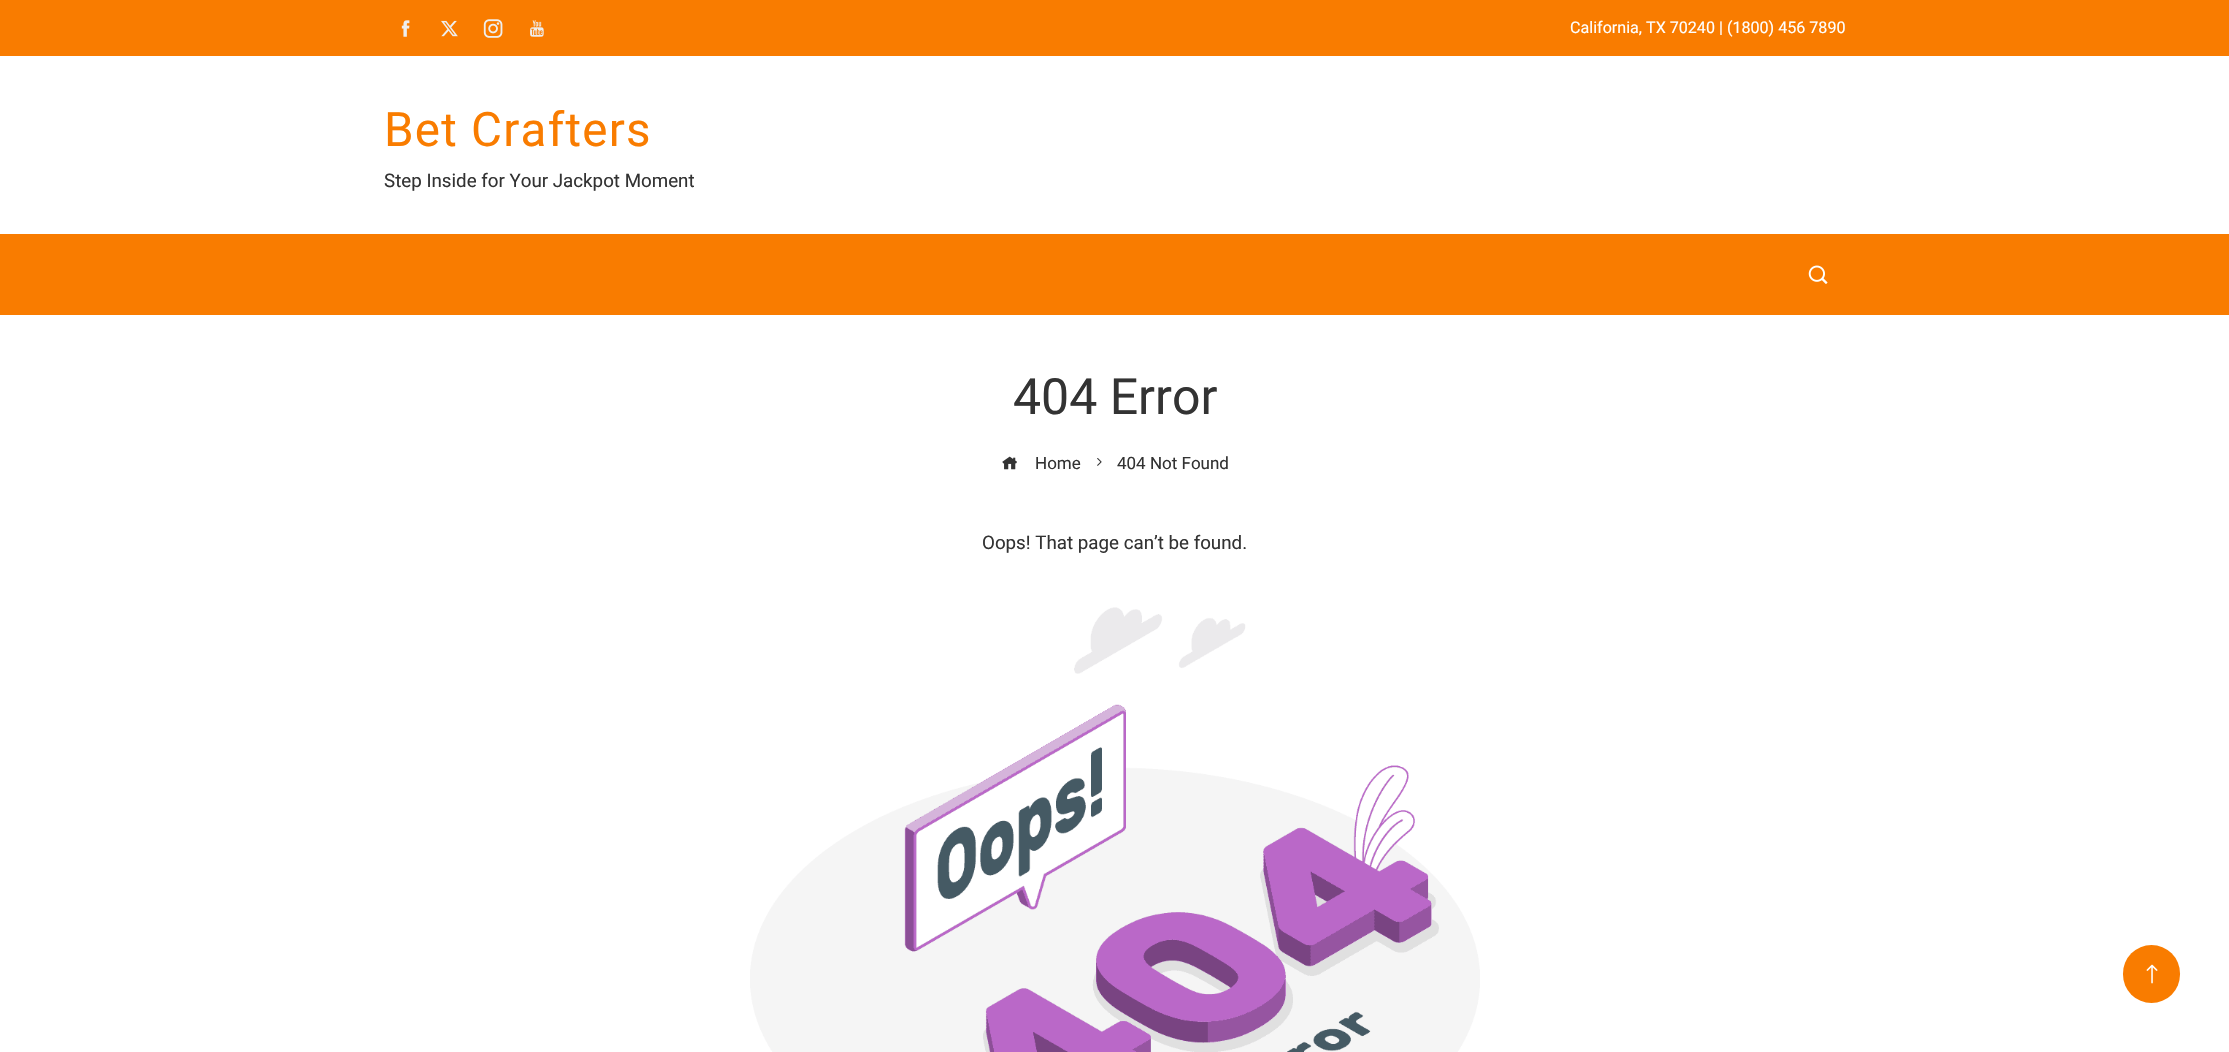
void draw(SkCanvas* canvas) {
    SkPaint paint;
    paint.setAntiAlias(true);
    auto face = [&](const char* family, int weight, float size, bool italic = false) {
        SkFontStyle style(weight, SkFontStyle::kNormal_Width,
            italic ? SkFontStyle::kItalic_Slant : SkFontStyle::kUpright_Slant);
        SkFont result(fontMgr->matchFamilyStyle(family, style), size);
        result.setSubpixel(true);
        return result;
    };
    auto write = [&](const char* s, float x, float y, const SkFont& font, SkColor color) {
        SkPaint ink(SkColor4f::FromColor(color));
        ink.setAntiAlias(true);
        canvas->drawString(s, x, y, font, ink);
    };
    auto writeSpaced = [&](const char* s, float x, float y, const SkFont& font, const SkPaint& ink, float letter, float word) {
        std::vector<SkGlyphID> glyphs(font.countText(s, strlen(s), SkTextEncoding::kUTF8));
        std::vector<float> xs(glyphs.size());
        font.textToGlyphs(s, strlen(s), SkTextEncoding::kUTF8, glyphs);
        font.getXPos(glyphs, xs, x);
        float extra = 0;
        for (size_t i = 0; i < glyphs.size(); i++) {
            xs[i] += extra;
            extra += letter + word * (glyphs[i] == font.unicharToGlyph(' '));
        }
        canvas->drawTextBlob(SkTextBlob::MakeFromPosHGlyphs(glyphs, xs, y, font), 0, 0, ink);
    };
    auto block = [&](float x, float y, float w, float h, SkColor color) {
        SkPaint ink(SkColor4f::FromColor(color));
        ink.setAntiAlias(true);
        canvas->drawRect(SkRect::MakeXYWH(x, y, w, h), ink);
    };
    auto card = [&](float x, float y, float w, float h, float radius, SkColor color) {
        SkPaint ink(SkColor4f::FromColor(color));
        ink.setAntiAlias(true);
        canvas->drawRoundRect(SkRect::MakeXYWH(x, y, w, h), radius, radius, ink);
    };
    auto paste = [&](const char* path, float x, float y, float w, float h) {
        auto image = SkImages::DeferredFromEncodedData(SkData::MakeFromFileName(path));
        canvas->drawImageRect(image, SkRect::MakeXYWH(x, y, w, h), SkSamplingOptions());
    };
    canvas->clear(SK_ColorWHITE);
    block(0, 0, 2229, 56, SkColorSetRGB(249, 124, 0));
    paste("pic1.png", 401, 20, 9, 17);
    paste("pic2.png", 441, 20, 17, 17);
    paste("pic3.png", 483, 19, 20, 19);
    paste("pic4.png", 530, 20, 14, 17);
    auto kFont1 = face("Roboto", 400, 16.1f);
    write("California, TX 70240 | (1800) 456 7890", 1570, 33, kFont1, SK_ColorWHITE);
    auto kFont2 = face("Roboto", 400, 47.5f);
    paint.setColor(SkColorSetRGB(249, 124, 0));
    writeSpaced("Bet Crafters", 384, 146, kFont2, paint, 1.25f, 0);
    auto kFont3 = face("Roboto", 400, 18.75f);
    write("Step Inside for Your Jackpot Moment", 384, 187, kFont3, SkColorSetRGB(51, 51, 51));
    block(0, 234, 2229, 81, SkColorSetRGB(249, 124, 0));
    paste("pic5.png", 1808, 265, 20, 19);
    auto kFont4 = face("Roboto", 400, 50);
    write("404 Error", 1013, 414, kFont4, SkColorSetRGB(51, 51, 51));
    paste("pic6.png", 1002, 456, 15, 14);
    auto kFont5 = face("Roboto", 400, 17);
    write("Home", 1035, 469, kFont5, SkColorSetRGB(51, 51, 51));
    paste("pic7.png", 1097, 458, 5, 8);
    write("404 Not Found", 1117, 469, kFont5, SkColorSetRGB(51, 51, 51));
    write("Oops! That page can’t be found.", 982, 549, kFont3, SkColorSetRGB(51, 51, 51));
    paste("pic8.png", 750, 607, 730, 445);
    card(2123, 945, 57, 58, 28.5f, SkColorSetRGB(249, 124, 0));
    paste("pic9.png", 2146, 964, 12, 20);
}
